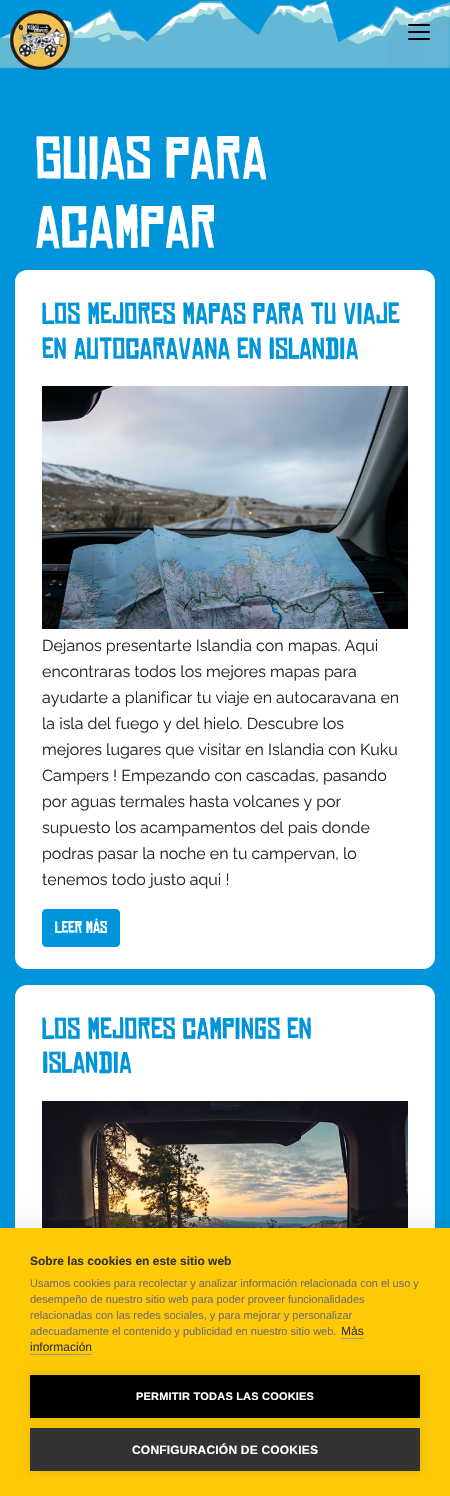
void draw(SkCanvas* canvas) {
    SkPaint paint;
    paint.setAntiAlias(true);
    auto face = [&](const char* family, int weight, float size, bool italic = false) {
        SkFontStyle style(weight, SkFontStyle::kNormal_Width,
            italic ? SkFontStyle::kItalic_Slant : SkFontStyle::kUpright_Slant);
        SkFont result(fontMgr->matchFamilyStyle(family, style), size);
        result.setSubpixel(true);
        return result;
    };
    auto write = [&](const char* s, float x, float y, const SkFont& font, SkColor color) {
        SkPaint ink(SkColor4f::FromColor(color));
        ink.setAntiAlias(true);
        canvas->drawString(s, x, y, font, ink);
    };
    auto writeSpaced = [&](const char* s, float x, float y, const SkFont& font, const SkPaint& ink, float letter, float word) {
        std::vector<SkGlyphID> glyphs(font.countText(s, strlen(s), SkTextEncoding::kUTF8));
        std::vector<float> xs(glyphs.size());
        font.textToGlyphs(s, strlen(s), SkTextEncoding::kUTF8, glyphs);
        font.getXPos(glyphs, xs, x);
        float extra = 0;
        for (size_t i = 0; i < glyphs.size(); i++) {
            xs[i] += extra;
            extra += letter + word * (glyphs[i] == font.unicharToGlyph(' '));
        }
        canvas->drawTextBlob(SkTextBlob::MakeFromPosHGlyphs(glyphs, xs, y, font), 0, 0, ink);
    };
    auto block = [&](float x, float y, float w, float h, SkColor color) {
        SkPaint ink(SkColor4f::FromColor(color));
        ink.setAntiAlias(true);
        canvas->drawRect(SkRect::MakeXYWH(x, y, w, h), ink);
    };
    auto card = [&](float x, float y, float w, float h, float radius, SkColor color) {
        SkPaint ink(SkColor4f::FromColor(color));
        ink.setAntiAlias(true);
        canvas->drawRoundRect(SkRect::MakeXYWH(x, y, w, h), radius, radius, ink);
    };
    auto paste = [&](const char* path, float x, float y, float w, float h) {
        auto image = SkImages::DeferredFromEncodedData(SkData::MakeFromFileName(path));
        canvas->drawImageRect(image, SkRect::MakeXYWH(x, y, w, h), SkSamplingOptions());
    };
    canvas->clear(SkColorSetRGB(0, 149, 218));
    paste("pic1.png", 0, 0, 450, 69);
    paste("pic2.png", 10, 10, 60, 60);
    card(408, 24, 22, 2, 1, SK_ColorBLACK);
    card(408, 31, 22, 2, 1, SK_ColorBLACK);
    card(408, 38, 22, 2, 1, SK_ColorBLACK);
    auto kFont1 = face("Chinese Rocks", 400, 57.5f);
    write("Guias para", 35, 179, kFont1, SK_ColorWHITE);
    write("acampar", 35, 248, kFont1, SK_ColorWHITE);
    paint.setColor(SK_ColorWHITE);
    canvas->drawRoundRect(SkRect::MakeXYWH(21, 276, 408, 687), 6, 6, paint);
    paint.setStyle(SkPaint::kStroke_Style);
    paint.setStrokeWidth(12);
    canvas->drawRoundRect(SkRect::MakeXYWH(21, 276, 408, 687), 6, 6, paint);
    auto kFont2 = face("Chinese Rocks", 400, 28.75f);
    write("Los mejores mapas para tu viaje", 42, 324, kFont2, SkColorSetRGB(0, 149, 218));
    write("en autocaravana en Islandia", 42, 359, kFont2, SkColorSetRGB(0, 149, 218));
    paste("pic3.png", 42, 386, 366, 243);
    auto kFont3 = face("Raleway", 100, 16);
    write("Dejanos presentarte Islandia con mapas. Aqui", 42, 651, kFont3, SkColorSetRGB(33, 37, 41));
    write("encontraras todos los mejores mapas para", 42, 677, kFont3, SkColorSetRGB(33, 37, 41));
    write("ayudarte a planificar tu viaje en autocaravana en", 42, 703, kFont3, SkColorSetRGB(33, 37, 41));
    write("la isla del fuego y del hielo. Descubre los", 42, 729, kFont3, SkColorSetRGB(33, 37, 41));
    write("mejores lugares que visitar en Islandia con Kuku", 42, 755, kFont3, SkColorSetRGB(33, 37, 41));
    write("Campers ! Empezando con cascadas, pasando", 42, 781, kFont3, SkColorSetRGB(33, 37, 41));
    write("por aguas termales hasta volcanes y por", 42, 807, kFont3, SkColorSetRGB(33, 37, 41));
    write("supuesto los acampamentos del pais donde", 42, 833, kFont3, SkColorSetRGB(33, 37, 41));
    write("podras pasar la noche en tu campervan, lo", 42, 859, kFont3, SkColorSetRGB(33, 37, 41));
    write("tenemos todo justo aqui !", 42, 885, kFont3, SkColorSetRGB(33, 37, 41));
    paint.setStyle(SkPaint::kFill_Style);
    paint.setColor(SkColorSetRGB(0, 149, 218));
    canvas->drawRoundRect(SkRect::MakeXYWH(42.5f, 909.5f, 77, 37), 3.5f, 3.5f, paint);
    paint.setStyle(SkPaint::kStroke_Style);
    paint.setStrokeWidth(1);
    canvas->drawRoundRect(SkRect::MakeXYWH(42.5f, 909.5f, 77, 37), 3.5f, 3.5f, paint);
    auto kFont4 = face("Chinese Rocks", 400, 16);
    write("Leer más", 55, 933, kFont4, SK_ColorWHITE);
    paint.setStyle(SkPaint::kFill_Style);
    paint.setColor(SK_ColorWHITE);
    canvas->drawRoundRect(SkRect::MakeXYWH(21, 991, 408, 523), 6, 6, paint);
    paint.setStyle(SkPaint::kStroke_Style);
    paint.setStrokeWidth(12);
    canvas->drawRoundRect(SkRect::MakeXYWH(21, 991, 408, 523), 6, 6, paint);
    write("Los mejores campings en", 42, 1039, kFont2, SkColorSetRGB(0, 149, 218));
    write("Islandia", 42, 1073, kFont2, SkColorSetRGB(0, 149, 218));
    paste("pic4.png", 42, 1101, 366, 127);
    paint.setStyle(SkPaint::kFill_Style);
    paint.setColor(SkColorSetARGB(26, 0, 0, 0));
    paint.setMaskFilter(SkMaskFilter::MakeBlur(kNormal_SkBlurStyle, 10));
    canvas->drawRect(SkRect::MakeXYWH(0, 1228, 450, 268), paint);
    paint.setMaskFilter(nullptr);
    block(0, 1228, 450, 268, SkColorSetRGB(255, 202, 5));
    auto kFont5 = face("Liberation Sans", 700, 12);
    write("Sobre las cookies en este sitio web", 30, 1265, kFont5, SkColorSetRGB(51, 51, 51));
    auto kFont6 = face("Liberation Sans", 400, 11);
    write("Usamos cookies para recolectar y analizar información relacionada con el uso y", 30, 1287, kFont6, SkColorSetRGB(112, 112, 112));
    write("desempeño de nuestro sitio web para poder proveer funcionalidades", 30, 1303, kFont6, SkColorSetRGB(112, 112, 112));
    write("relacionadas con las redes sociales, y para mejorar y personalizar", 30, 1319, kFont6, SkColorSetRGB(112, 112, 112));
    write("adecuadamente el contenido y publicidad en nuestro sitio web.", 30, 1335, kFont6, SkColorSetRGB(112, 112, 112));
    auto kFont7 = face("Liberation Sans", 400, 12);
    write("Más", 341, 1335, kFont7, SkColorSetRGB(51, 51, 51));
    block(341, 1338, 23, 1, SkColorSetRGB(153, 153, 153));
    write("información", 30, 1351, kFont7, SkColorSetRGB(51, 51, 51));
    block(30, 1354, 62, 1, SkColorSetRGB(153, 153, 153));
    paint.setColor(SkColorSetARGB(31, 0, 0, 0));
    paint.setMaskFilter(SkMaskFilter::MakeBlur(kNormal_SkBlurStyle, 5));
    canvas->drawRect(SkRect::MakeXYWH(30, 1375, 390, 43), paint);
    paint.setMaskFilter(nullptr);
    block(30, 1375, 390, 43, SK_ColorBLACK);
    auto kFont8 = face("Liberation Sans", 700, 11);
    paint.setColor(SK_ColorWHITE);
    writeSpaced("PERMITIR TODAS LAS COOKIES", 136, 1400, kFont8, paint, 0.2f, 0);
    paint.setColor(SkColorSetARGB(31, 0, 0, 0));
    paint.setMaskFilter(SkMaskFilter::MakeBlur(kNormal_SkBlurStyle, 5));
    canvas->drawRect(SkRect::MakeXYWH(30, 1428, 390, 43), paint);
    paint.setMaskFilter(nullptr);
    block(30, 1428, 390, 43, SkColorSetRGB(51, 51, 51));
    paint.setColor(SK_ColorWHITE);
    writeSpaced("CONFIGURACIÓN DE COOKIES", 132, 1454, kFont5, paint, 0.2f, 0);
}
